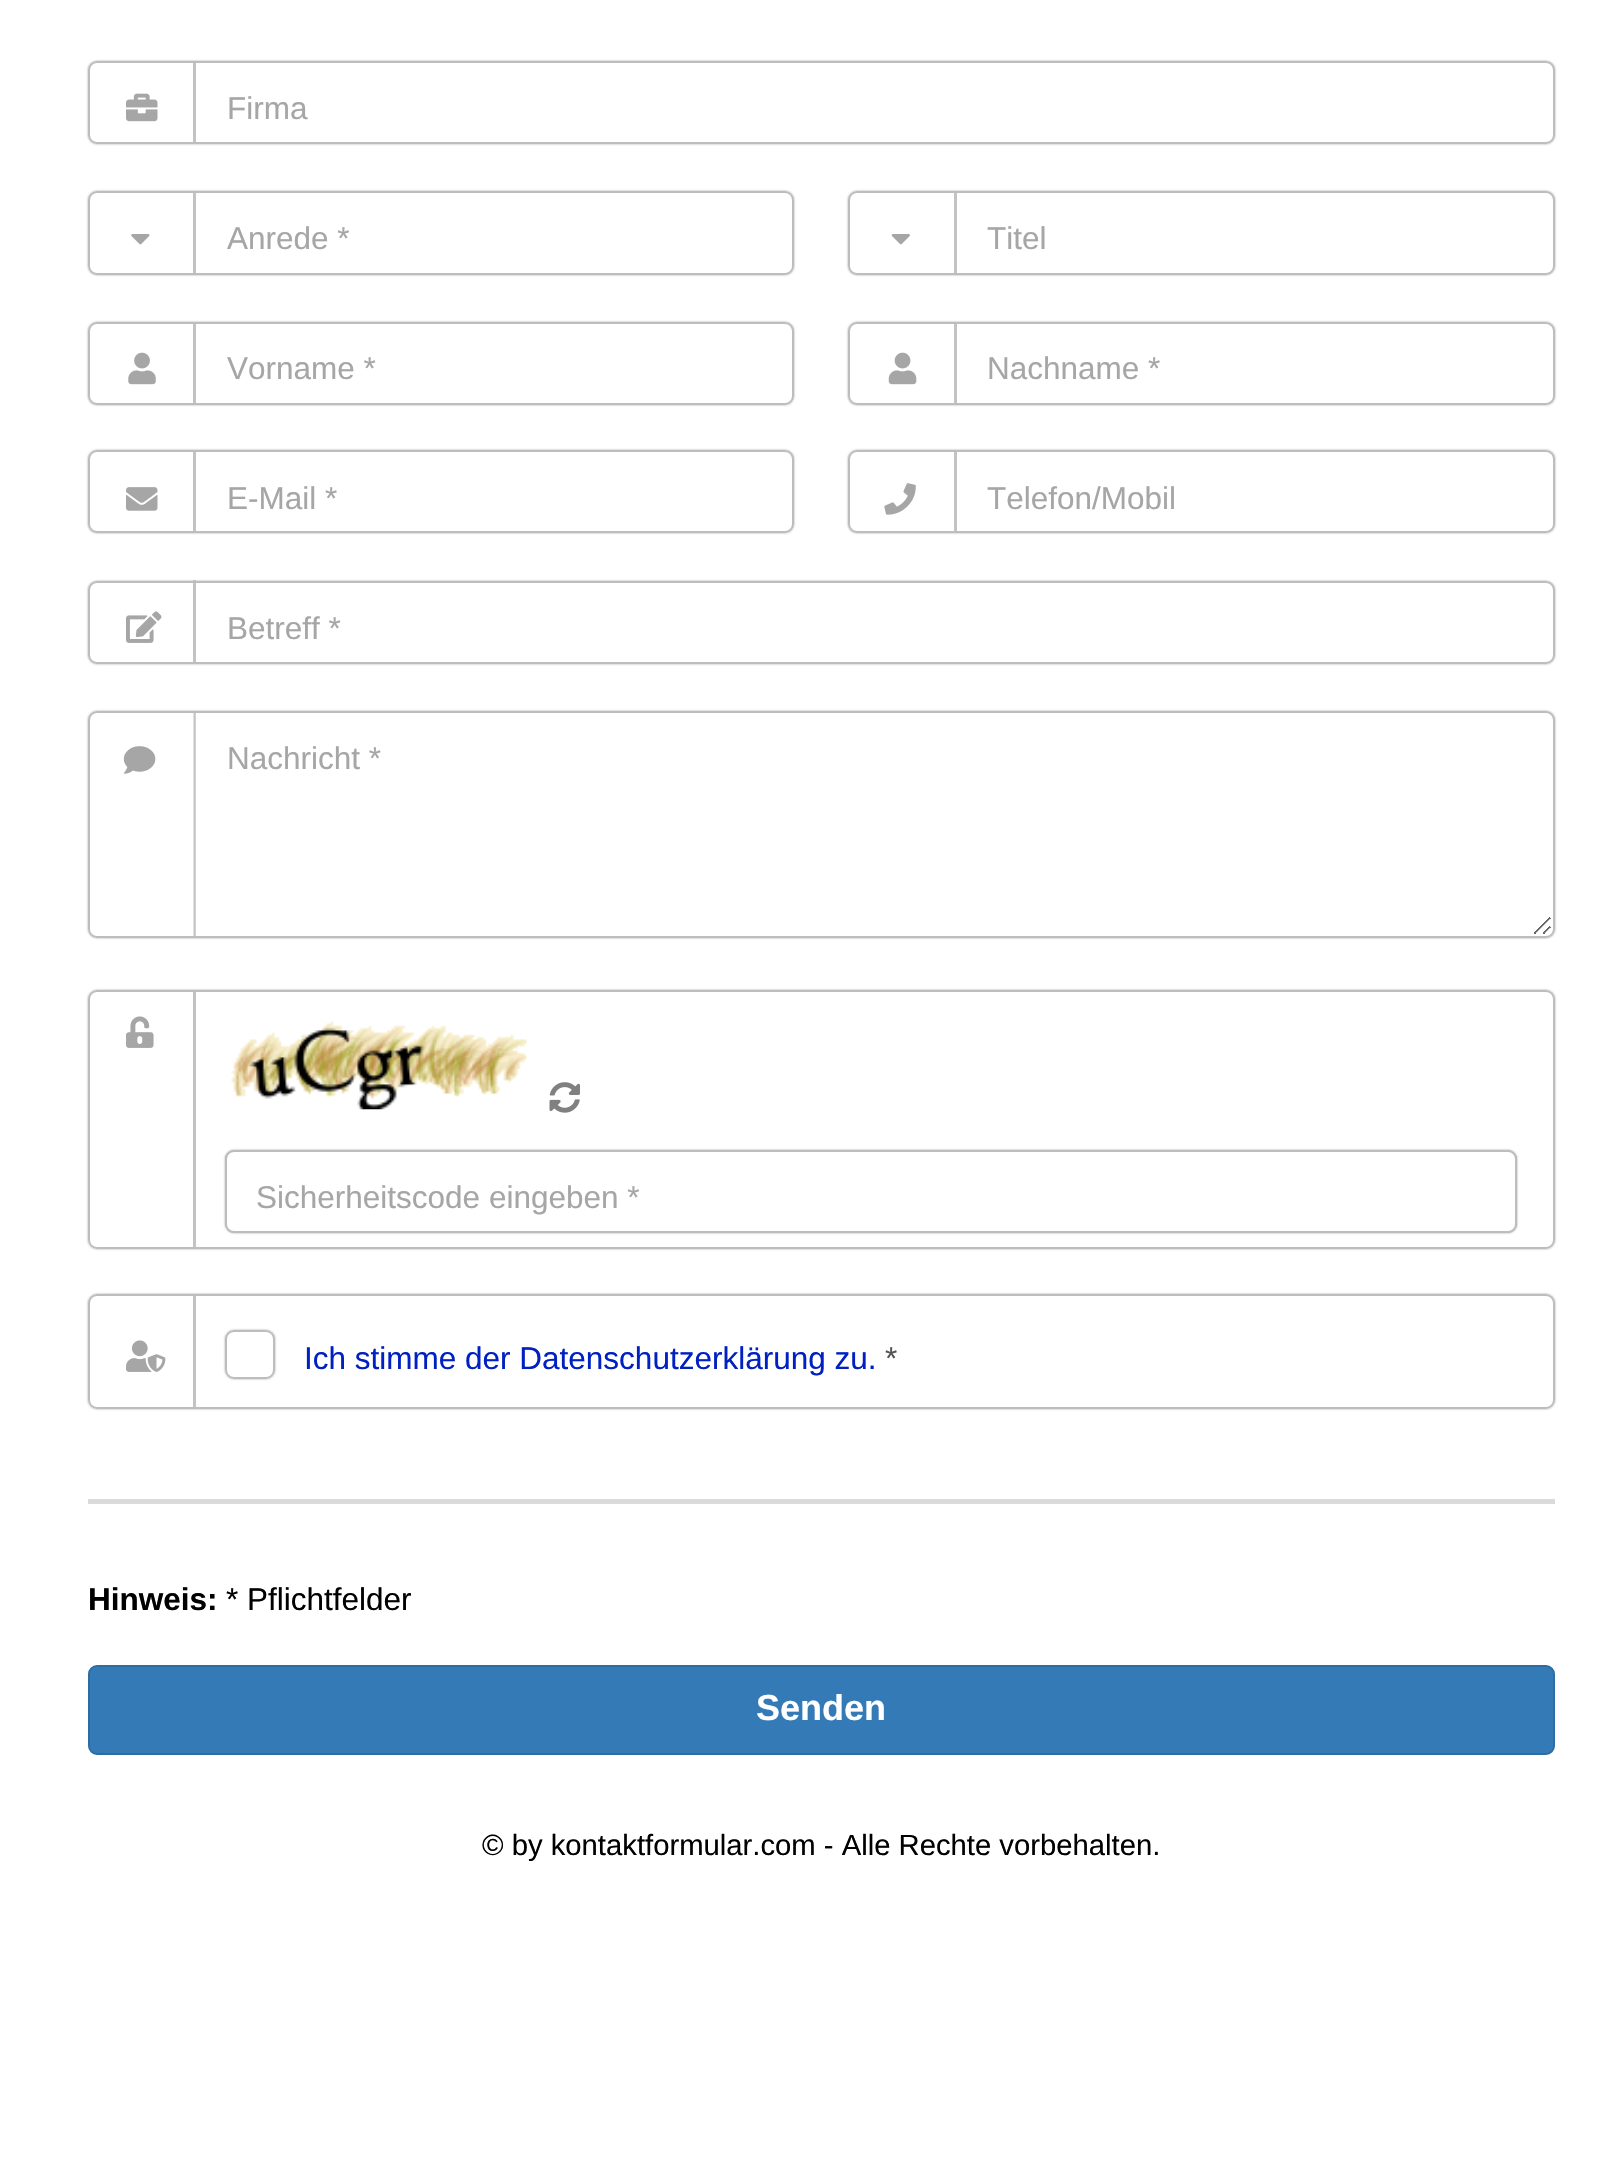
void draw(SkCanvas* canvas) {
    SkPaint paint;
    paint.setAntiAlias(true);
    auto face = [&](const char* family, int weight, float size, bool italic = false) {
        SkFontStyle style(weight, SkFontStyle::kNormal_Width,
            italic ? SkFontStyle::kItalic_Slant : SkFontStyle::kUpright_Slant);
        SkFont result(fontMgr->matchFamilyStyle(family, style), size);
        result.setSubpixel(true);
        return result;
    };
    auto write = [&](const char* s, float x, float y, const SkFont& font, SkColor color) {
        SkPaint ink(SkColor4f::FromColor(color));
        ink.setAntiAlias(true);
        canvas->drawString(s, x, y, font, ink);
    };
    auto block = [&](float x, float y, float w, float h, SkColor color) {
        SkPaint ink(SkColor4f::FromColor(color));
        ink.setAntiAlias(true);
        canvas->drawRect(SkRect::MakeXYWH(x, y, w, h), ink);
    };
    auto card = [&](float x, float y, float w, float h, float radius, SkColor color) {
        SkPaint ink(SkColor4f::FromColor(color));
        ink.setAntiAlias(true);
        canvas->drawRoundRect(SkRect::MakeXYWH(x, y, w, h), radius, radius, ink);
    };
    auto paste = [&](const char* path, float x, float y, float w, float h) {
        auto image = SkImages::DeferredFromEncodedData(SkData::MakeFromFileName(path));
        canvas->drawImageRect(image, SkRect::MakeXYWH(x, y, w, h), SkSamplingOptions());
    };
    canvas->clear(SK_ColorWHITE);
    paint.setColor(SkColorSetARGB(102, 0, 0, 0));
    paint.setMaskFilter(SkMaskFilter::MakeBlur(kNormal_SkBlurStyle, 1));
    canvas->drawRoundRect(SkRect::MakeXYWH(88, 61, 1467, 83), 9, 9, paint);
    paint.setMaskFilter(nullptr);
    card(88, 61, 1467, 83, 9, SK_ColorWHITE);
    block(193, 61, 3, 83, SkColorSetRGB(195, 195, 195));
    paint.setStyle(SkPaint::kStroke_Style);
    paint.setStrokeWidth(2);
    paint.setColor(SkColorSetRGB(189, 189, 189));
    canvas->drawRoundRect(SkRect::MakeXYWH(89, 62, 1465, 81), 8, 8, paint);
    paste("pic1.png", 126, 93, 32, 29);
    auto kFont1 = face("Liberation Sans", 400, 31.5f);
    write("Firma", 227, 119, kFont1, SkColorSetRGB(166, 166, 166));
    paint.setStyle(SkPaint::kFill_Style);
    paint.setColor(SkColorSetARGB(102, 0, 0, 0));
    paint.setMaskFilter(SkMaskFilter::MakeBlur(kNormal_SkBlurStyle, 1));
    canvas->drawRoundRect(SkRect::MakeXYWH(88, 191, 706, 84), 9, 9, paint);
    paint.setMaskFilter(nullptr);
    card(88, 191, 706, 84, 9, SK_ColorWHITE);
    block(193, 191, 3, 84, SkColorSetRGB(195, 195, 195));
    paint.setStyle(SkPaint::kStroke_Style);
    paint.setColor(SkColorSetRGB(189, 189, 189));
    canvas->drawRoundRect(SkRect::MakeXYWH(89, 192, 704, 82), 8, 8, paint);
    paste("pic2.png", 131, 234, 19, 11);
    write("Anrede *", 227, 249, kFont1, SkColorSetRGB(166, 166, 166));
    paint.setStyle(SkPaint::kFill_Style);
    paint.setColor(SkColorSetARGB(102, 0, 0, 0));
    paint.setMaskFilter(SkMaskFilter::MakeBlur(kNormal_SkBlurStyle, 1));
    canvas->drawRoundRect(SkRect::MakeXYWH(848, 191, 707, 84), 9, 9, paint);
    paint.setMaskFilter(nullptr);
    card(848, 191, 707, 84, 9, SK_ColorWHITE);
    block(954, 191, 3, 84, SkColorSetRGB(195, 195, 195));
    paint.setStyle(SkPaint::kStroke_Style);
    paint.setColor(SkColorSetRGB(189, 189, 189));
    canvas->drawRoundRect(SkRect::MakeXYWH(849, 192, 705, 82), 8, 8, paint);
    paste("pic3.png", 891, 234, 19, 11);
    write("Titel", 987, 249, kFont1, SkColorSetRGB(166, 166, 166));
    paint.setStyle(SkPaint::kFill_Style);
    paint.setColor(SkColorSetARGB(102, 0, 0, 0));
    paint.setMaskFilter(SkMaskFilter::MakeBlur(kNormal_SkBlurStyle, 1));
    canvas->drawRoundRect(SkRect::MakeXYWH(88, 322, 706, 83), 9, 9, paint);
    paint.setMaskFilter(nullptr);
    card(88, 322, 706, 83, 9, SK_ColorWHITE);
    block(193, 322, 3, 83, SkColorSetRGB(195, 195, 195));
    paint.setStyle(SkPaint::kStroke_Style);
    paint.setColor(SkColorSetRGB(189, 189, 189));
    canvas->drawRoundRect(SkRect::MakeXYWH(89, 323, 704, 81), 8, 8, paint);
    paste("pic4.png", 128, 352, 28, 33);
    write("Vorname *", 227, 379, kFont1, SkColorSetRGB(166, 166, 166));
    paint.setStyle(SkPaint::kFill_Style);
    paint.setColor(SkColorSetARGB(102, 0, 0, 0));
    paint.setMaskFilter(SkMaskFilter::MakeBlur(kNormal_SkBlurStyle, 1));
    canvas->drawRoundRect(SkRect::MakeXYWH(848, 322, 707, 83), 9, 9, paint);
    paint.setMaskFilter(nullptr);
    card(848, 322, 707, 83, 9, SK_ColorWHITE);
    block(954, 322, 3, 83, SkColorSetRGB(195, 195, 195));
    paint.setStyle(SkPaint::kStroke_Style);
    paint.setColor(SkColorSetRGB(189, 189, 189));
    canvas->drawRoundRect(SkRect::MakeXYWH(849, 323, 705, 81), 8, 8, paint);
    paste("pic5.png", 888, 352, 29, 33);
    write("Nachname *", 987, 379, kFont1, SkColorSetRGB(166, 166, 166));
    paint.setStyle(SkPaint::kFill_Style);
    paint.setColor(SkColorSetARGB(102, 0, 0, 0));
    paint.setMaskFilter(SkMaskFilter::MakeBlur(kNormal_SkBlurStyle, 1));
    canvas->drawRoundRect(SkRect::MakeXYWH(88, 450, 706, 83), 9, 9, paint);
    paint.setMaskFilter(nullptr);
    card(88, 450, 706, 83, 9, SK_ColorWHITE);
    block(193, 450, 3, 83, SkColorSetRGB(195, 195, 195));
    paint.setStyle(SkPaint::kStroke_Style);
    paint.setColor(SkColorSetRGB(189, 189, 189));
    canvas->drawRoundRect(SkRect::MakeXYWH(89, 451, 704, 81), 8, 8, paint);
    paste("pic6.png", 126, 487, 32, 24);
    write("E-Mail *", 227, 509, kFont1, SkColorSetRGB(166, 166, 166));
    paint.setStyle(SkPaint::kFill_Style);
    paint.setColor(SkColorSetARGB(102, 0, 0, 0));
    paint.setMaskFilter(SkMaskFilter::MakeBlur(kNormal_SkBlurStyle, 1));
    canvas->drawRoundRect(SkRect::MakeXYWH(848, 450, 707, 83), 9, 9, paint);
    paint.setMaskFilter(nullptr);
    card(848, 450, 707, 83, 9, SK_ColorWHITE);
    block(954, 450, 3, 83, SkColorSetRGB(195, 195, 195));
    paint.setStyle(SkPaint::kStroke_Style);
    paint.setColor(SkColorSetRGB(189, 189, 189));
    canvas->drawRoundRect(SkRect::MakeXYWH(849, 451, 705, 81), 8, 8, paint);
    paste("pic7.png", 884, 483, 32, 32);
    write("Telefon/Mobil", 987, 509, kFont1, SkColorSetRGB(166, 166, 166));
    paint.setStyle(SkPaint::kFill_Style);
    paint.setColor(SkColorSetARGB(102, 0, 0, 0));
    paint.setMaskFilter(SkMaskFilter::MakeBlur(kNormal_SkBlurStyle, 1));
    canvas->drawRoundRect(SkRect::MakeXYWH(88, 581, 1467, 83), 9, 9, paint);
    paint.setMaskFilter(nullptr);
    card(88, 581, 1467, 83, 9, SK_ColorWHITE);
    block(193, 580, 3, 84, SkColorSetRGB(195, 195, 195));
    paint.setStyle(SkPaint::kStroke_Style);
    paint.setColor(SkColorSetRGB(189, 189, 189));
    canvas->drawRoundRect(SkRect::MakeXYWH(89, 582, 1465, 81), 8, 8, paint);
    paste("pic8.png", 126, 611, 36, 32);
    write("Betreff *", 227, 639, kFont1, SkColorSetRGB(166, 166, 166));
    paint.setStyle(SkPaint::kFill_Style);
    paint.setColor(SkColorSetARGB(102, 0, 0, 0));
    paint.setMaskFilter(SkMaskFilter::MakeBlur(kNormal_SkBlurStyle, 1));
    canvas->drawRoundRect(SkRect::MakeXYWH(88, 711, 1467, 227), 9, 9, paint);
    paint.setMaskFilter(nullptr);
    card(88, 711, 1467, 227, 9, SK_ColorWHITE);
    paste("pic10.png", 193, 713, 1358, 223);
    paint.setStyle(SkPaint::kStroke_Style);
    paint.setColor(SkColorSetRGB(189, 189, 189));
    canvas->drawRoundRect(SkRect::MakeXYWH(89, 712, 1465, 225), 8, 8, paint);
    paste("pic9.png", 123, 746, 33, 28);
    write("Nachricht *", 227, 769, kFont1, SkColorSetRGB(166, 166, 166));
    canvas->save();
    canvas->clipPath(SkPathBuilder(SkPathFillType::kEvenOdd).moveTo(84, 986).lineTo(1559, 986).lineTo(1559, 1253).lineTo(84, 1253).close().moveTo(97, 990).lineTo(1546, 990).cubicTo(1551, 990, 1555, 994, 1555, 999).lineTo(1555, 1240).cubicTo(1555, 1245, 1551, 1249, 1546, 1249).lineTo(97, 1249).cubicTo(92, 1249, 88, 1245, 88, 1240).lineTo(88, 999).cubicTo(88, 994, 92, 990, 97, 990).close().detach(), true);
    paint.setStyle(SkPaint::kFill_Style);
    paint.setColor(SkColorSetARGB(102, 0, 0, 0));
    paint.setMaskFilter(SkMaskFilter::MakeBlur(kNormal_SkBlurStyle, 1));
    canvas->drawRoundRect(SkRect::MakeXYWH(88, 990, 1467, 259), 9, 9, paint);
    paint.setMaskFilter(nullptr);
    canvas->restore();
    block(193, 990, 3, 259, SkColorSetRGB(195, 195, 195));
    paint.setStyle(SkPaint::kStroke_Style);
    paint.setColor(SkColorSetRGB(189, 189, 189));
    canvas->drawRoundRect(SkRect::MakeXYWH(89, 991, 1465, 257), 8, 8, paint);
    paste("pic11.png", 126, 1016, 28, 32);
    paste("pic12.png", 231, 1021, 296, 89);
    paste("pic13.png", 549, 1082, 31, 31);
    paint.setStyle(SkPaint::kFill_Style);
    paint.setColor(SkColorSetARGB(102, 0, 0, 0));
    paint.setMaskFilter(SkMaskFilter::MakeBlur(kNormal_SkBlurStyle, 1));
    canvas->drawRoundRect(SkRect::MakeXYWH(225, 1150, 1292, 83), 9, 9, paint);
    paint.setMaskFilter(nullptr);
    paint.setColor(SK_ColorWHITE);
    canvas->drawRoundRect(SkRect::MakeXYWH(226, 1151, 1290, 81), 8, 8, paint);
    paint.setStyle(SkPaint::kStroke_Style);
    paint.setColor(SkColorSetRGB(189, 189, 189));
    canvas->drawRoundRect(SkRect::MakeXYWH(226, 1151, 1290, 81), 8, 8, paint);
    write("Sicherheitscode eingeben *", 256, 1208, kFont1, SkColorSetRGB(166, 166, 166));
    canvas->save();
    canvas->clipPath(SkPathBuilder(SkPathFillType::kEvenOdd).moveTo(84, 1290).lineTo(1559, 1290).lineTo(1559, 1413).lineTo(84, 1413).close().moveTo(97, 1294).lineTo(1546, 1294).cubicTo(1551, 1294, 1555, 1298, 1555, 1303).lineTo(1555, 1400).cubicTo(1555, 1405, 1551, 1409, 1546, 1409).lineTo(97, 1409).cubicTo(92, 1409, 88, 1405, 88, 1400).lineTo(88, 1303).cubicTo(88, 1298, 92, 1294, 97, 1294).close().detach(), true);
    paint.setStyle(SkPaint::kFill_Style);
    paint.setColor(SkColorSetARGB(102, 0, 0, 0));
    paint.setMaskFilter(SkMaskFilter::MakeBlur(kNormal_SkBlurStyle, 1));
    canvas->drawRoundRect(SkRect::MakeXYWH(88, 1294, 1467, 115), 9, 9, paint);
    paint.setMaskFilter(nullptr);
    canvas->restore();
    block(193, 1294, 3, 115, SkColorSetRGB(195, 195, 195));
    paint.setStyle(SkPaint::kStroke_Style);
    paint.setColor(SkColorSetRGB(189, 189, 189));
    canvas->drawRoundRect(SkRect::MakeXYWH(89, 1295, 1465, 113), 8, 8, paint);
    paste("pic14.png", 126, 1340, 40, 32);
    canvas->save();
    canvas->clipPath(SkPathBuilder(SkPathFillType::kEvenOdd).moveTo(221, 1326).lineTo(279, 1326).lineTo(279, 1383).lineTo(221, 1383).close().moveTo(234, 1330).lineTo(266, 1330).cubicTo(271, 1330, 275, 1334, 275, 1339).lineTo(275, 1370).cubicTo(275, 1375, 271, 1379, 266, 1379).lineTo(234, 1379).cubicTo(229, 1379, 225, 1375, 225, 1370).lineTo(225, 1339).cubicTo(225, 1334, 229, 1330, 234, 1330).close().detach(), true);
    paint.setStyle(SkPaint::kFill_Style);
    paint.setColor(SkColorSetARGB(102, 0, 0, 0));
    paint.setMaskFilter(SkMaskFilter::MakeBlur(kNormal_SkBlurStyle, 1));
    canvas->drawRoundRect(SkRect::MakeXYWH(225, 1330, 50, 49), 9, 9, paint);
    paint.setMaskFilter(nullptr);
    canvas->restore();
    paint.setStyle(SkPaint::kStroke_Style);
    paint.setColor(SkColorSetRGB(189, 189, 189));
    canvas->drawRoundRect(SkRect::MakeXYWH(226, 1331, 48, 47), 8, 8, paint);
    write("Ich stimme der Datenschutzerklärung zu.", 304, 1369, kFont1, SkColorSetRGB(0, 32, 193));
    write("*", 885, 1369, kFont1, SkColorSetRGB(85, 85, 85));
    block(88, 1499, 1467, 5, SkColorSetRGB(218, 218, 218));
    auto kFont2 = face("Liberation Sans", 700, 31.5f);
    write("Hinweis:", 88, 1610, kFont2, SK_ColorBLACK);
    write("* Pflichtfelder", 226, 1610, kFont1, SK_ColorBLACK);
    paint.setStyle(SkPaint::kFill_Style);
    paint.setColor(SkColorSetRGB(51, 122, 183));
    canvas->drawRoundRect(SkRect::MakeXYWH(89, 1666, 1465, 88), 8, 8, paint);
    paint.setStyle(SkPaint::kStroke_Style);
    paint.setColor(SkColorSetRGB(46, 109, 164));
    canvas->drawRoundRect(SkRect::MakeXYWH(89, 1666, 1465, 88), 8, 8, paint);
    auto kFont3 = face("Liberation Sans", 700, 36);
    write("Senden", 756, 1720, kFont3, SK_ColorWHITE);
    auto kFont4 = face("Liberation Sans", 400, 29.25f);
    write("© by kontaktformular.com - Alle Rechte vorbehalten.", 482, 1855, kFont4, SK_ColorBLACK);
}
